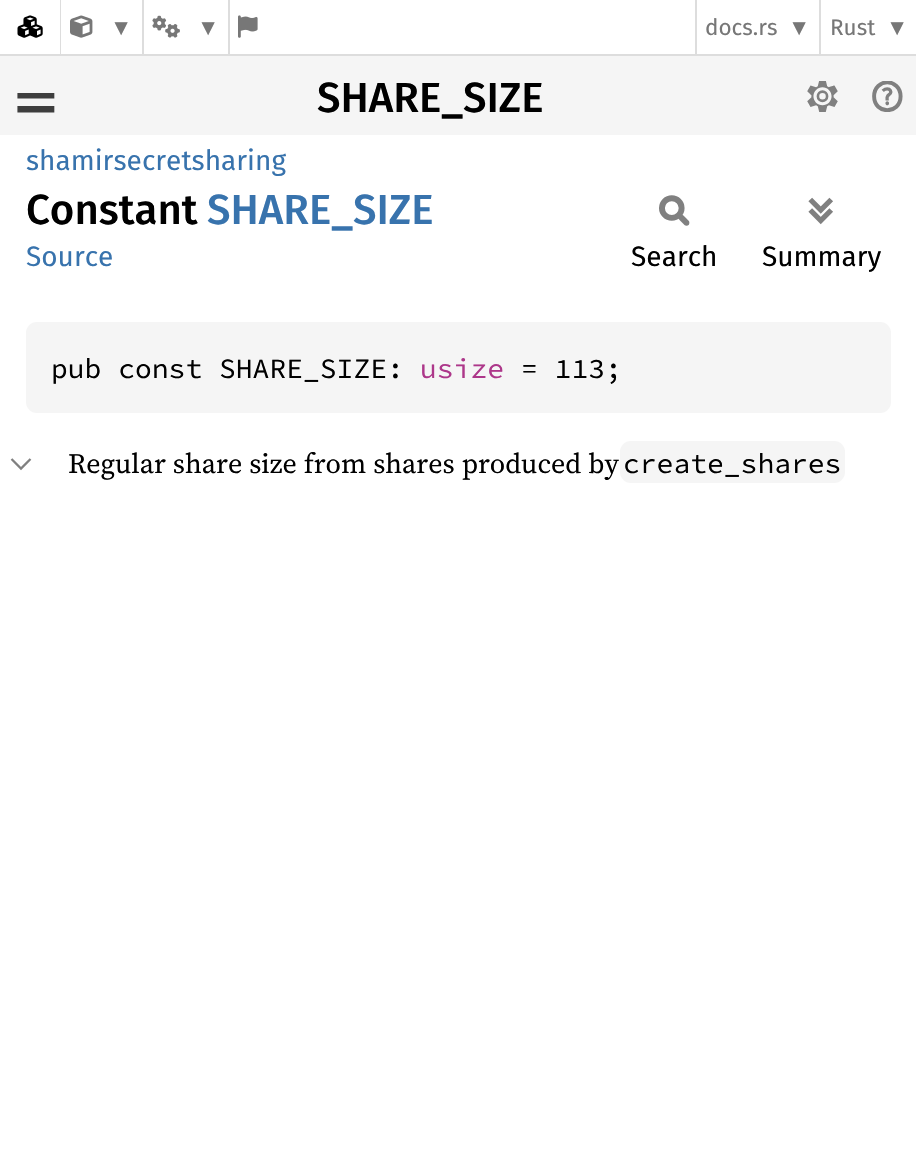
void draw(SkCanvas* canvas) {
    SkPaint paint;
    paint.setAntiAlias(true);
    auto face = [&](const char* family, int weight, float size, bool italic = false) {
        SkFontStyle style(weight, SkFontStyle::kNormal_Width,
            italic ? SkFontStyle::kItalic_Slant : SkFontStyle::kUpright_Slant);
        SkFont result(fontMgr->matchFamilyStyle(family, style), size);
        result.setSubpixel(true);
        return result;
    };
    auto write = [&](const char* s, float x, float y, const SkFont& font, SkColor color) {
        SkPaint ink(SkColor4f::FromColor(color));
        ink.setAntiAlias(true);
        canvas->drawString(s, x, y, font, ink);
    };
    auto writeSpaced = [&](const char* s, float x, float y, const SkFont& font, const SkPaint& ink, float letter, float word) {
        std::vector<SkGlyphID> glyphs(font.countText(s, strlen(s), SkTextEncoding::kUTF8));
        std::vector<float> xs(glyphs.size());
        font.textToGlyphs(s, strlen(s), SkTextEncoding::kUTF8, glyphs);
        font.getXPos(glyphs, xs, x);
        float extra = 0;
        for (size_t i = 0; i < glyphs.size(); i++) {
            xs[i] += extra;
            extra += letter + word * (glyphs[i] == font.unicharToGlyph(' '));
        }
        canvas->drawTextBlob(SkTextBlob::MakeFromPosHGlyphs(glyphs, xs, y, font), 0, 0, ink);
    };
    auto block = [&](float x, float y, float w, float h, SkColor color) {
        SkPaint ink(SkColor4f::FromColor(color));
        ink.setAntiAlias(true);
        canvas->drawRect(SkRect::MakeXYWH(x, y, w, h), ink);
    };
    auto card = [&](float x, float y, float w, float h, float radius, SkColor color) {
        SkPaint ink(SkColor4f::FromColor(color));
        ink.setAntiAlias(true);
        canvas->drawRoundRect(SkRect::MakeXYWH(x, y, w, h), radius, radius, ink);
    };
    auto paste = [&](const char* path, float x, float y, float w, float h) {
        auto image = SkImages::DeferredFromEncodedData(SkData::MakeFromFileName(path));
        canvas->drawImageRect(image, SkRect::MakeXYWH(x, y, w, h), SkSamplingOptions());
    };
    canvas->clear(SK_ColorWHITE);
    block(0, 54, 916, 2, SkColorSetRGB(221, 221, 221));
    paste("pic1.png", 17, 15, 26, 23);
    block(60, 0, 1, 54, SkColorSetRGB(221, 221, 221));
    paste("pic2.png", 70, 15, 23, 23);
    auto kFont1 = face("Liberation Sans", 400, 22.5f);
    write("▼", 110, 35, kFont1, SkColorSetRGB(119, 119, 119));
    block(142, 0, 2, 54, SkColorSetRGB(221, 221, 221));
    paste("pic3.png", 152, 15, 28, 23);
    write("▼", 197, 35, kFont1, SkColorSetRGB(119, 119, 119));
    block(228, 0, 2, 54, SkColorSetRGB(221, 221, 221));
    paste("pic4.png", 238, 15, 20, 23);
    block(695, 0, 2, 54, SkColorSetRGB(221, 221, 221));
    auto kFont2 = face("Fira Sans", 400, 22.5f);
    write("docs.rs", 705, 35, kFont2, SkColorSetRGB(119, 119, 119));
    write("▼", 788, 35, kFont1, SkColorSetRGB(119, 119, 119));
    block(819, 0, 2, 54, SkColorSetRGB(221, 221, 221));
    write("Rust", 830, 35, kFont2, SkColorSetRGB(119, 119, 119));
    write("▼", 886, 35, kFont1, SkColorSetRGB(119, 119, 119));
    block(0, 56, 916, 79, SkColorSetRGB(245, 245, 245));
    paste("pic5.png", 17, 93, 38, 20);
    auto kFont3 = face("Fira Sans", 500, 42);
    write("SHARE_SIZE", 317, 112, kFont3, SK_ColorBLACK);
    paste("pic6.png", 807, 81, 31, 31);
    paste("pic7.png", 872, 81, 31, 31);
    auto kFont4 = face("Fira Sans", 400, 28);
    write("shamirsecretsharing", 26, 170, kFont4, SkColorSetRGB(56, 115, 173));
    write("Constant", 26, 224, kFont3, SK_ColorBLACK);
    write("SHARE_SIZE", 207, 224, kFont3, SkColorSetRGB(56, 115, 173));
    write("Source", 26, 266, kFont4, SkColorSetRGB(56, 115, 173));
    paste("pic8.png", 659, 195, 31, 31);
    write("Search", 631, 266, kFont4, SK_ColorBLACK);
    paste("pic9.png", 808, 197, 25, 28);
    write("Summary", 762, 266, kFont4, SK_ColorBLACK);
    card(26, 322, 865, 91, 11, SkColorSetRGB(245, 245, 245));
    auto kFont5 = face("Source Code Pro", 400, 28);
    write("pub const SHARE_SIZE:", 51, 378, kFont5, SK_ColorBLACK);
    write("usize", 420, 378, kFont5, SkColorSetRGB(173, 55, 138));
    write("= 113;", 521, 378, kFont5, SK_ColorBLACK);
    paint.setStyle(SkPaint::kStroke_Style);
    paint.setStrokeWidth(2.3f);
    paint.setColor(SkColorSetRGB(128, 128, 128));
    canvas->drawPath(SkPathBuilder().moveTo(11.5f, 459).lineTo(21, 468.5f).lineTo(30.5f, 459).detach(), paint);
    auto kFont6 = face("Source Serif 4", 400, 28);
    paint.setStyle(SkPaint::kFill_Style);
    paint.setColor(SK_ColorBLACK);
    writeSpaced("Regular share size from shares produced by", 68, 473, kFont6, paint, 0, 0.5f);
    card(620, 441, 225, 42, 11, SkColorSetRGB(245, 245, 245));
    write("create_shares", 623, 473, kFont5, SK_ColorBLACK);
}
